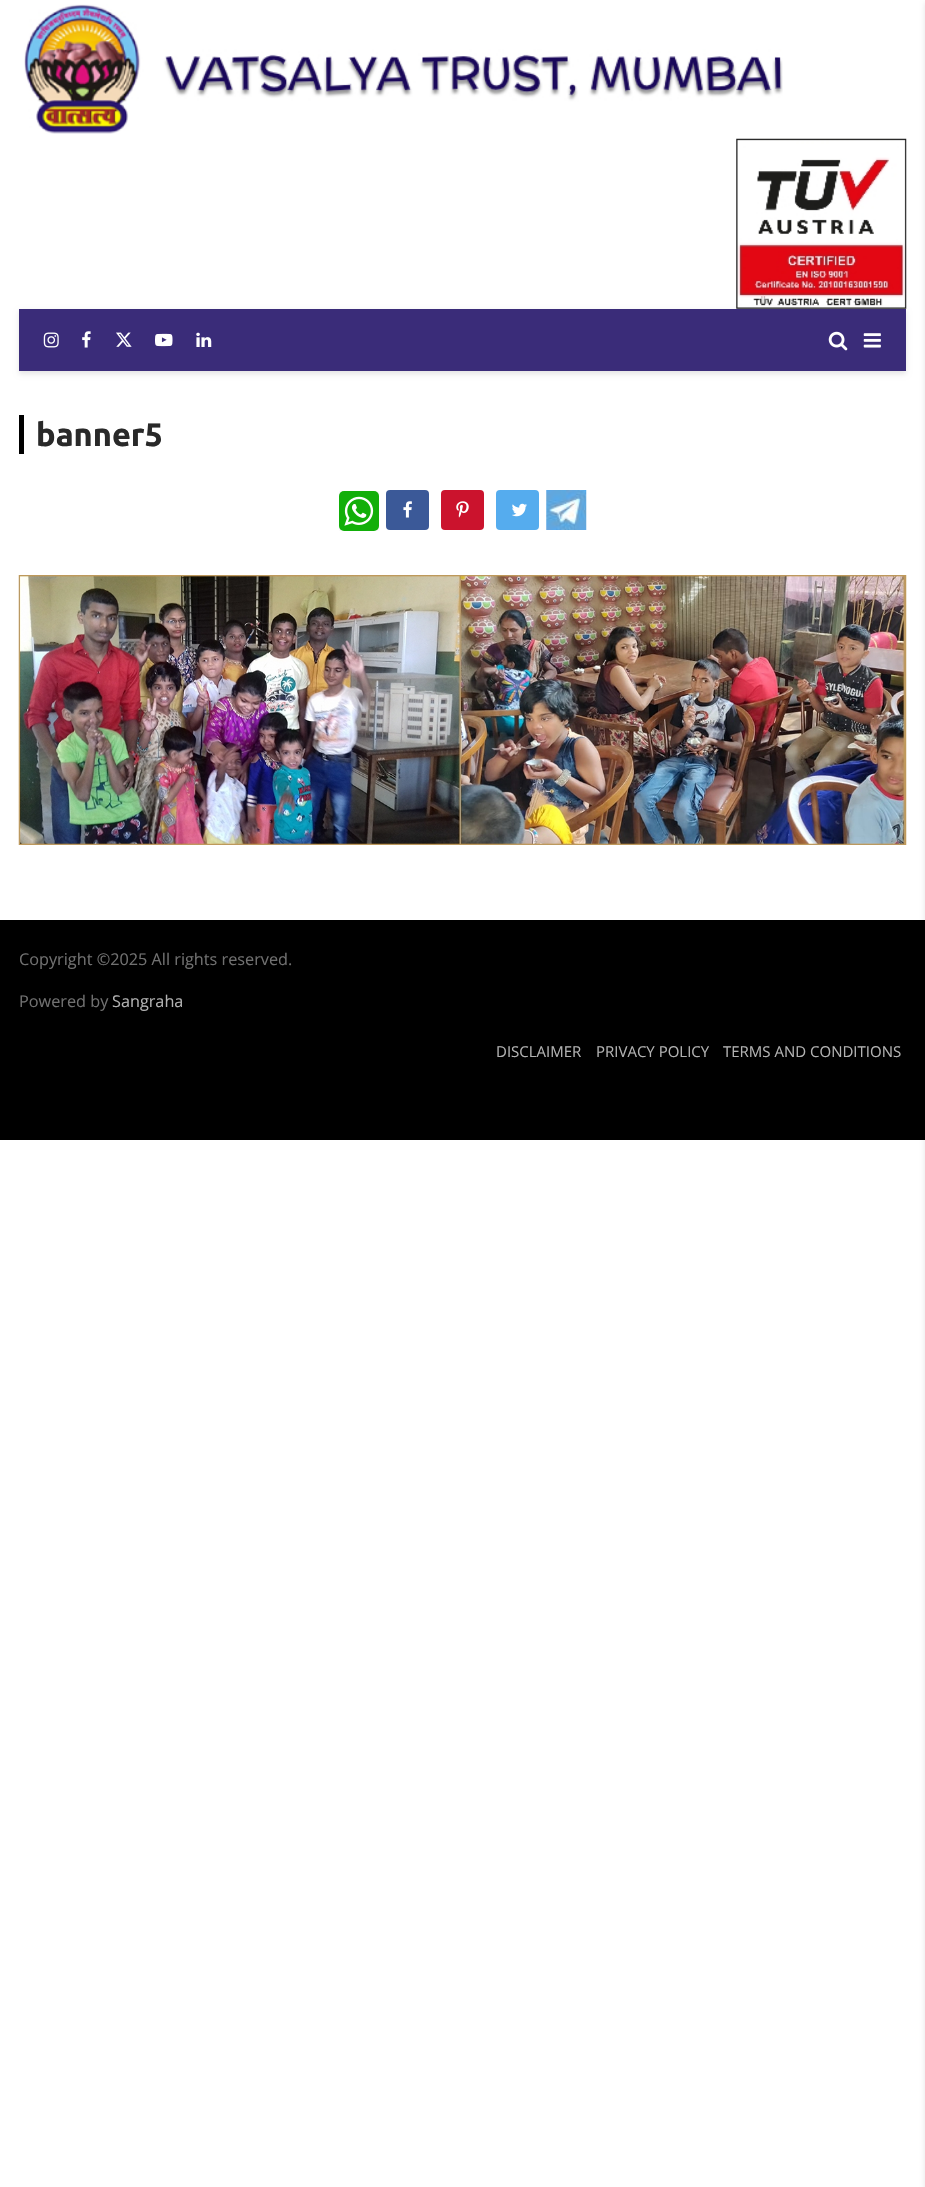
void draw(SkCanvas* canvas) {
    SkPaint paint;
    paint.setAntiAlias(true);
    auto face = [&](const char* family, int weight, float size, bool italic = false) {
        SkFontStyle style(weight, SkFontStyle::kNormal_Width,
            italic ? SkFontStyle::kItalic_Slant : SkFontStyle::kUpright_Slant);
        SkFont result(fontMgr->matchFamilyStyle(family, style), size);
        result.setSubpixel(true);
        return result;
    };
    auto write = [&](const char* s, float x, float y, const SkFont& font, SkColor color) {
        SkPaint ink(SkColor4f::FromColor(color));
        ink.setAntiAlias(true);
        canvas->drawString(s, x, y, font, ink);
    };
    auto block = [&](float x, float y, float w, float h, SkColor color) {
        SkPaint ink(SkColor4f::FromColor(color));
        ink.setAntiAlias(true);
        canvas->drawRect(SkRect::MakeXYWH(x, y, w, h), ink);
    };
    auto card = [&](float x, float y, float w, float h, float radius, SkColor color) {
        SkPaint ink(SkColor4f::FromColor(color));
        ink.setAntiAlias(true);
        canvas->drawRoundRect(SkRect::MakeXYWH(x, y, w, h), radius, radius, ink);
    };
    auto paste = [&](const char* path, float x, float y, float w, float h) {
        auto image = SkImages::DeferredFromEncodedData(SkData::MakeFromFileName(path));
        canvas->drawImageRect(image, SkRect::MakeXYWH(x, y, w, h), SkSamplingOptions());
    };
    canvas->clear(SK_ColorWHITE);
    paste("pic9.png", 736, 138, 171, 171);
    paint.setColor(SkColorSetARGB(26, 0, 0, 0));
    paint.setMaskFilter(SkMaskFilter::MakeBlur(kNormal_SkBlurStyle, 2.5f));
    canvas->drawRect(SkRect::MakeXYWH(19, 311, 887, 63), paint);
    paint.setMaskFilter(nullptr);
    block(19, 309, 887, 62, SkColorSetRGB(58, 44, 121));
    paste("pic1.png", 43, 332, 16, 16);
    paste("pic2.png", 82, 331, 9, 17);
    paste("pic3.png", 116, 332, 16, 15);
    paste("pic4.png", 155, 333, 18, 14);
    paste("pic5.png", 196, 332, 16, 15);
    paste("pic6.png", 828, 331, 20, 20);
    paste("pic7.png", 863, 333, 18, 15);
    block(0, 920, 925, 220, SK_ColorBLACK);
    paint.setMaskFilter(SkMaskFilter::MakeBlur(kNormal_SkBlurStyle, 2.5f));
    canvas->drawRect(SkRect::MakeXYWH(925, 3, 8, 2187), paint);
    paint.setMaskFilter(nullptr);
    paste("pic8.png", 24, 4, 759, 130);
    block(19, 415, 5, 39, SK_ColorBLACK);
    auto kFont1 = face("Ubuntu", 700, 32.5f);
    write("banner5", 36, 446, kFont1, SkColorSetRGB(41, 41, 41));
    block(339, 491, 40, 40, SkColorSetRGB(250, 250, 250));
    card(339, 491, 40, 40, 5, SkColorSetRGB(18, 175, 10));
    paste("pic10.png", 344, 496, 30, 30);
    card(386, 490, 43, 40, 4, SkColorSetRGB(59, 89, 152));
    paste("pic11.png", 403, 501, 9, 17);
    card(441, 490, 43, 40, 4, SkColorSetRGB(203, 19, 45));
    paste("pic12.png", 456, 501, 13, 17);
    card(496, 490, 43, 40, 4, SkColorSetRGB(85, 172, 238));
    paste("pic13.png", 512, 503, 15, 14);
    paste("pic14.png", 546, 490, 41, 40);
    paste("pic15.png", 18, 575, 889, 270);
    auto kFont2 = face("Open Sans", 400, 16.25f);
    write("Copyright ©2025 All rights reserved.", 19, 965, kFont2, SkColorSetRGB(112, 112, 112));
    write("Powered by", 19, 1007, kFont2, SkColorSetRGB(112, 112, 112));
    write("Sangraha", 112, 1007, kFont2, SkColorSetRGB(178, 178, 178));
    auto kFont3 = face("Open Sans", 400, 15);
    write("DISCLAIMER", 496, 1057, kFont3, SkColorSetRGB(178, 178, 178));
    write("PRIVACY POLICY", 596, 1057, kFont3, SkColorSetRGB(178, 178, 178));
    write("TERMS AND CONDITIONS", 723, 1057, kFont3, SkColorSetRGB(178, 178, 178));
}
